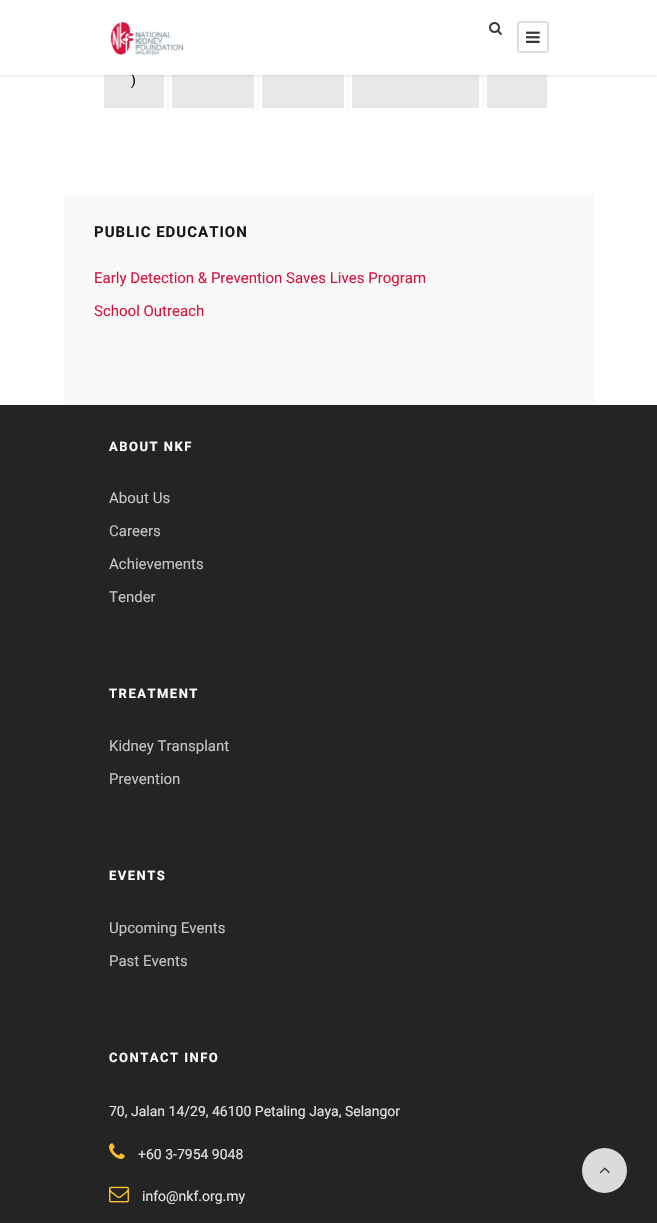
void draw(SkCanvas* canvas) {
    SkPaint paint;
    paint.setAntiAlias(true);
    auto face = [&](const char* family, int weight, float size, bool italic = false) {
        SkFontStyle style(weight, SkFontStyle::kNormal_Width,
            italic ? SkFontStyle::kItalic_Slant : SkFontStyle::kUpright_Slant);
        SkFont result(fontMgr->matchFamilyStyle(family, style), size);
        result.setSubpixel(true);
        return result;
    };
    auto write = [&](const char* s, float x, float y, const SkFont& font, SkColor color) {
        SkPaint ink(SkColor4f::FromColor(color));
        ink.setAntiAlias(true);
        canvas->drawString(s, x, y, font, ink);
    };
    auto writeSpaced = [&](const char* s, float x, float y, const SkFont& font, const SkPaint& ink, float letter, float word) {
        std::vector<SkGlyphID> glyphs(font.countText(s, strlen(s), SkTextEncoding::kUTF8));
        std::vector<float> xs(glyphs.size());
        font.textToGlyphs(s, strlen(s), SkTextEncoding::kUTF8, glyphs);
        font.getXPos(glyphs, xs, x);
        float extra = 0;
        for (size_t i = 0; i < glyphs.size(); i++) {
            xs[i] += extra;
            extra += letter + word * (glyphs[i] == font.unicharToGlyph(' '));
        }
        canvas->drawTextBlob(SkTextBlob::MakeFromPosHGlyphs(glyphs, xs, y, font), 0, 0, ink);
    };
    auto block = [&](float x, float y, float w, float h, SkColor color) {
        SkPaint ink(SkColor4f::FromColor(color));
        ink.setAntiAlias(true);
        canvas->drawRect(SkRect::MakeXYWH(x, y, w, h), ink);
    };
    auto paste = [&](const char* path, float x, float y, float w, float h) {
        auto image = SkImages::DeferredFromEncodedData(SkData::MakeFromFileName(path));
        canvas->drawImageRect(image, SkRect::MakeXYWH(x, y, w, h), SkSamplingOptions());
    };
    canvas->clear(SK_ColorWHITE);
    block(167, 75, 317, 36, SkColorSetRGB(249, 249, 249));
    block(104, 75, 60, 33, SkColorSetRGB(232, 232, 232));
    block(172, 75, 82, 33, SkColorSetRGB(232, 232, 232));
    paint.setStyle(SkPaint::kStroke_Style);
    paint.setStrokeWidth(3);
    paint.setColor(SK_ColorWHITE);
    canvas->drawRect(SkRect::MakeXYWH(170.5f, -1.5f, 85, 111), paint);
    block(262, 75, 82, 33, SkColorSetRGB(232, 232, 232));
    canvas->drawRect(SkRect::MakeXYWH(260.5f, -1.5f, 85, 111), paint);
    block(352, 75, 127, 33, SkColorSetRGB(232, 232, 232));
    canvas->drawRect(SkRect::MakeXYWH(350.5f, -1.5f, 130, 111), paint);
    block(487, 75, 60, 33, SkColorSetRGB(232, 232, 232));
    paint.setStyle(SkPaint::kFill_Style);
    paint.setColor(SkColorSetARGB(26, 0, 0, 0));
    paint.setMaskFilter(SkMaskFilter::MakeBlur(kNormal_SkBlurStyle, 1));
    canvas->drawRect(SkRect::MakeXYWH(0, 1, 657, 75), paint);
    paint.setMaskFilter(nullptr);
    auto kFont1 = face("Roboto", 400, 14);
    write(")", 131, 85, kFont1, SK_ColorBLACK);
    block(0, 0, 657, 75, SK_ColorWHITE);
    paste("pic1.png", 110, 21, 74, 35);
    paste("pic2.png", 489, 22, 13, 13);
    paint.setStyle(SkPaint::kStroke_Style);
    paint.setStrokeWidth(2);
    paint.setColor(SkColorSetRGB(221, 221, 221));
    canvas->drawRoundRect(SkRect::MakeXYWH(518, 22, 30, 30), 2, 2, paint);
    paste("pic3.png", 526, 31, 14, 12);
    block(64, 193, 531, 212, SkColorSetRGB(249, 249, 249));
    auto kFont2 = face("Roboto", 700, 15);
    paint.setStyle(SkPaint::kFill_Style);
    paint.setColor(SkColorSetRGB(22, 22, 22));
    writeSpaced("PUBLIC EDUCATION", 94, 237, kFont2, paint, 1, 0);
    auto kFont3 = face("Roboto", 400, 15);
    write("Early Detection & Prevention Saves Lives Program", 94, 283, kFont3, SkColorSetRGB(211, 22, 66));
    write("School Outreach", 94, 316, kFont3, SkColorSetRGB(211, 22, 66));
    block(0, 405, 657, 818, SkColorSetRGB(36, 36, 36));
    auto kFont4 = face("Roboto", 700, 13);
    paint.setColor(SK_ColorWHITE);
    writeSpaced("ABOUT NKF", 109, 451, kFont4, paint, 1.5f, 0);
    write("About Us", 109, 503, kFont3, SkColorSetRGB(196, 196, 196));
    write("Careers", 109, 536, kFont3, SkColorSetRGB(196, 196, 196));
    write("Achievements", 109, 569, kFont3, SkColorSetRGB(196, 196, 196));
    write("Tender", 109, 602, kFont3, SkColorSetRGB(196, 196, 196));
    writeSpaced("TREATMENT", 109, 698, kFont4, paint, 1.5f, 0);
    write("Kidney Transplant", 109, 751, kFont3, SkColorSetRGB(196, 196, 196));
    write("Prevention", 109, 784, kFont3, SkColorSetRGB(196, 196, 196));
    writeSpaced("EVENTS", 109, 880, kFont4, paint, 1.5f, 0);
    write("Upcoming Events", 109, 933, kFont3, SkColorSetRGB(196, 196, 196));
    write("Past Events", 109, 966, kFont3, SkColorSetRGB(196, 196, 196));
    writeSpaced("CONTACT INFO", 109, 1062, kFont4, paint, 1.5f, 0);
    write("70, Jalan 14/29, 46100 Petaling Jaya, Selangor", 109, 1116, kFont1, SkColorSetRGB(226, 226, 226));
    paste("pic4.png", 109, 1143, 16, 16);
    write("+60 3-7954 9048", 138, 1159, kFont1, SkColorSetRGB(226, 226, 226));
    paste("pic5.png", 109, 1186, 20, 17);
    write("info@nkf.org.my", 142, 1201, kFont1, SkColorSetRGB(226, 226, 226));
    paint.setColor(SkColorSetRGB(219, 219, 219));
    canvas->drawCircle(604.5f, 1170.5f, 22.5f, paint);
    paste("pic6.png", 599, 1167, 11, 7);
}
